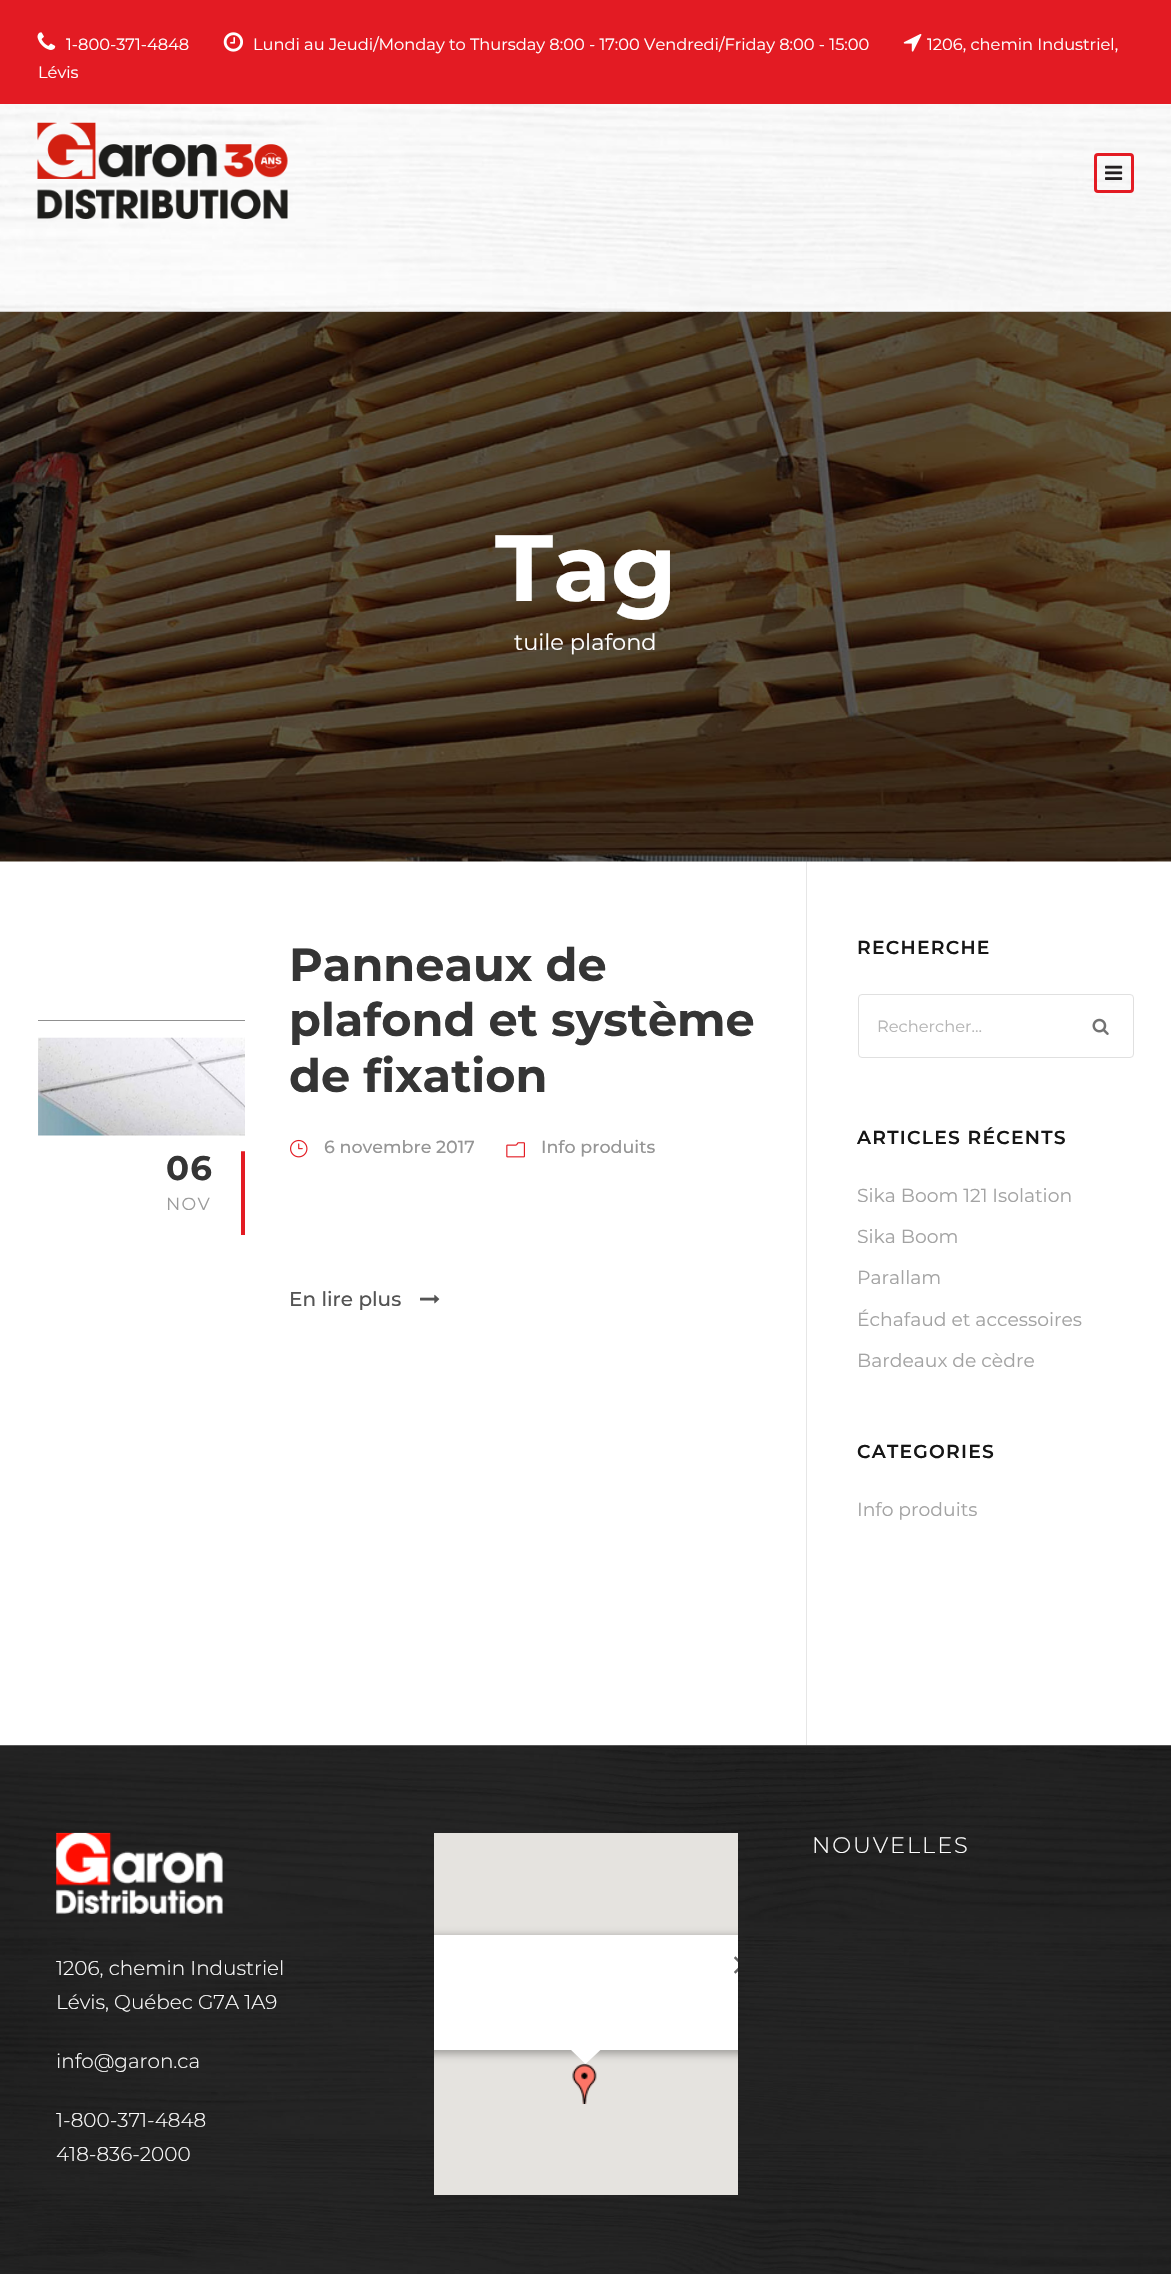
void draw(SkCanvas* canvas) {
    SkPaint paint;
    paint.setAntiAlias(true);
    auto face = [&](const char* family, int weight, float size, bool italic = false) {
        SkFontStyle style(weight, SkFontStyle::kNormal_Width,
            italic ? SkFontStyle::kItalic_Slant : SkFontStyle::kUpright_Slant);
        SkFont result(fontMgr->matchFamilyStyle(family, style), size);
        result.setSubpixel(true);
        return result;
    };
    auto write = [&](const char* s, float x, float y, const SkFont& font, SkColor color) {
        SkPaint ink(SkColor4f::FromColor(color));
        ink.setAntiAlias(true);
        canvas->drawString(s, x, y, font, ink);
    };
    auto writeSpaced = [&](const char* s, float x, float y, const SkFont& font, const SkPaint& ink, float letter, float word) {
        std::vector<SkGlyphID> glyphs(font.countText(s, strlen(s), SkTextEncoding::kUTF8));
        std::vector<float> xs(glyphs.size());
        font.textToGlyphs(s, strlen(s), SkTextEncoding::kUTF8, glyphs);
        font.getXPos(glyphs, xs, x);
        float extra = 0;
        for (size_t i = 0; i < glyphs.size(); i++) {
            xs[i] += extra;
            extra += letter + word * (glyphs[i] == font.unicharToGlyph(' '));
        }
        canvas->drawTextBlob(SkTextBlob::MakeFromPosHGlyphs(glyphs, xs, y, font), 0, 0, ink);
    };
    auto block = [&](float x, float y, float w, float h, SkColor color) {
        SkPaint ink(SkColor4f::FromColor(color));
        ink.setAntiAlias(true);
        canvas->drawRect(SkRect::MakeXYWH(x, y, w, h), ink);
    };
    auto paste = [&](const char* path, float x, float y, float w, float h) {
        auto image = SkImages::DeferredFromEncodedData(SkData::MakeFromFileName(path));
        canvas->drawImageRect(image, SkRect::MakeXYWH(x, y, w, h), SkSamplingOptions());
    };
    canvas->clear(SK_ColorWHITE);
    block(0, 0, 1171, 104, SkColorSetRGB(227, 27, 35));
    paste("pic1.png", 37, 32, 19, 18);
    auto kFont1 = face("Montserrat", 400, 16.25f);
    write("1-800-371-4848", 66, 50, kFont1, SK_ColorWHITE);
    paste("pic2.png", 223, 32, 20, 20);
    write("Lundi au Jeudi/Monday to Thursday 8:00 - 17:00 Vendredi/Friday 8:00 - 15:00", 253, 50, kFont1, SK_ColorWHITE);
    paste("pic3.png", 903, 34, 19, 18);
    write("1206, chemin Industriel,", 927, 50, kFont1, SK_ColorWHITE);
    write("Lévis", 38, 78, kFont1, SK_ColorWHITE);
    paste("pic4.png", 0, 104, 1171, 207);
    paste("pic5.png", 37, 122, 251, 97);
    paint.setStyle(SkPaint::kStroke_Style);
    paint.setStrokeWidth(3);
    paint.setColor(SkColorSetRGB(227, 27, 35));
    canvas->drawRoundRect(SkRect::MakeXYWH(1095.5f, 154.5f, 37, 37), 2.5f, 2.5f, paint);
    paste("pic6.png", 1105, 165, 18, 15);
    block(806, 861, 1, 884, SkColorSetRGB(230, 230, 230));
    paste("pic7.png", 0, 311, 1171, 551);
    auto kFont2 = face("Montserrat", 700, 94);
    write("Tag", 495, 601, kFont2, SK_ColorWHITE);
    auto kFont3 = face("Montserrat", 400, 22.5f);
    write("tuile plafond", 514, 650, kFont3, SK_ColorWHITE);
    block(38, 1020, 207, 1, SK_ColorBLACK);
    block(241, 1151, 4, 84, SkColorSetRGB(227, 27, 35));
    paste("pic8.png", 38, 1020, 207, 132);
    auto kFont4 = face("Montserrat", 700, 34);
    paint.setStyle(SkPaint::kFill_Style);
    paint.setColor(SkColorSetRGB(53, 53, 53));
    writeSpaced("06", 166, 1180, kFont4, paint, 1.25f, 0);
    auto kFont5 = face("Montserrat", 400, 17.5f);
    paint.setColor(SkColorSetRGB(155, 155, 155));
    writeSpaced("NOV", 166, 1210, kFont5, paint, 1.25f, 0);
    auto kFont6 = face("Montserrat", 700, 46.25f);
    write("Panneaux de", 289, 981, kFont6, SkColorSetRGB(53, 53, 53));
    write("plafond et système", 289, 1036, kFont6, SkColorSetRGB(53, 53, 53));
    write("de fixation", 289, 1092, kFont6, SkColorSetRGB(53, 53, 53));
    paste("pic9.png", 290, 1139, 18, 19);
    auto kFont7 = face("Montserrat", 500, 17.5f);
    write("6 novembre 2017", 324, 1153, kFont7, SkColorSetRGB(149, 149, 149));
    paste("pic10.png", 506, 1142, 19, 16);
    write("Info produits", 541, 1153, kFont7, SkColorSetRGB(149, 149, 149));
    auto kFont8 = face("Montserrat", 500, 20);
    write("En lire plus", 289, 1306, kFont8, SkColorSetRGB(84, 84, 84));
    paste("pic11.png", 420, 1294, 20, 10);
    auto kFont9 = face("Montserrat", 600, 18.75f);
    paint.setColor(SkColorSetRGB(22, 22, 22));
    writeSpaced("RECHERCHE", 857, 954, kFont9, paint, 1.25f, 0);
    paint.setStyle(SkPaint::kStroke_Style);
    paint.setStrokeWidth(1);
    paint.setColor(SkColorSetRGB(224, 224, 224));
    canvas->drawRoundRect(SkRect::MakeXYWH(858.5f, 994.5f, 275, 63), 3.5f, 3.5f, paint);
    write("Rechercher…", 877, 1032, kFont1, SkColorSetRGB(181, 181, 181));
    paste("pic12.png", 1092, 1018, 17, 17);
    paint.setStyle(SkPaint::kFill_Style);
    paint.setColor(SkColorSetRGB(22, 22, 22));
    writeSpaced("ARTICLES RÉCENTS", 857, 1144, kFont9, paint, 1.25f, 0);
    auto kFont10 = face("Montserrat", 400, 18.75f);
    write("Sika Boom 121 Isolation", 857, 1202, kFont10, SkColorSetRGB(163, 163, 163));
    write("Sika Boom", 857, 1243, kFont10, SkColorSetRGB(163, 163, 163));
    write("Parallam", 857, 1284, kFont10, SkColorSetRGB(163, 163, 163));
    write("Échafaud et accessoires", 857, 1326, kFont10, SkColorSetRGB(163, 163, 163));
    write("Bardeaux de cèdre", 857, 1367, kFont10, SkColorSetRGB(163, 163, 163));
    writeSpaced("CATEGORIES", 857, 1458, kFont9, paint, 1.25f, 0);
    write("Info produits", 857, 1516, kFont10, SkColorSetRGB(163, 163, 163));
    paste("pic13.png", 0, 1745, 1171, 529);
    block(434, 1833, 304, 362, SkColorSetRGB(229, 227, 223));
    paste("pic15.png", 572, 2064, 25, 40);
    canvas->save();
    canvas->clipRect(SkRect::MakeXYWH(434, 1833, 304, 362));
    paint.setColor(SkColorSetARGB(77, 0, 0, 0));
    paint.setMaskFilter(SkMaskFilter::MakeBlur(kNormal_SkBlurStyle, 4.5f));
    canvas->drawRoundRect(SkRect::MakeXYWH(396, 1936, 378, 118), 11, 11, paint);
    paint.setMaskFilter(nullptr);
    canvas->restore();
    block(434, 1935, 304, 115, SK_ColorWHITE);
    paste("pic14.png", 734, 1956, 4, 18);
    paint.setColor(SK_ColorWHITE);
    canvas->drawPath(SkPathBuilder().moveTo(570, 2049).lineTo(601, 2049).lineTo(601, 2049.5f).lineTo(585.5f, 2064).close().detach(), paint);
    auto kFont11 = face("Montserrat", 300, 22.5f);
    writeSpaced("NOUVELLES", 812, 1853, kFont11, paint, 1.9f, 0);
    paste("pic16.png", 56, 1832, 167, 82);
    auto kFont12 = face("Montserrat", 300, 20);
    write("1206, chemin Industriel", 56, 1975, kFont12, SK_ColorWHITE);
    write("Lévis, Québec G7A 1A9", 56, 2009, kFont12, SK_ColorWHITE);
    write("info@garon.ca", 56, 2068, kFont12, SK_ColorWHITE);
    write("1-800-371-4848", 56, 2127, kFont12, SK_ColorWHITE);
    write("418-836-2000", 56, 2161, kFont12, SK_ColorWHITE);
}
